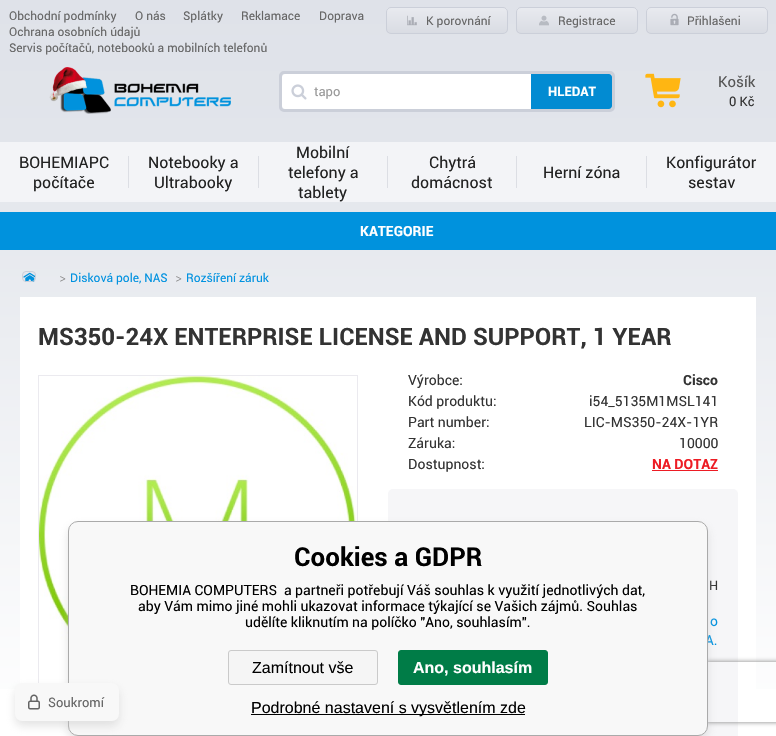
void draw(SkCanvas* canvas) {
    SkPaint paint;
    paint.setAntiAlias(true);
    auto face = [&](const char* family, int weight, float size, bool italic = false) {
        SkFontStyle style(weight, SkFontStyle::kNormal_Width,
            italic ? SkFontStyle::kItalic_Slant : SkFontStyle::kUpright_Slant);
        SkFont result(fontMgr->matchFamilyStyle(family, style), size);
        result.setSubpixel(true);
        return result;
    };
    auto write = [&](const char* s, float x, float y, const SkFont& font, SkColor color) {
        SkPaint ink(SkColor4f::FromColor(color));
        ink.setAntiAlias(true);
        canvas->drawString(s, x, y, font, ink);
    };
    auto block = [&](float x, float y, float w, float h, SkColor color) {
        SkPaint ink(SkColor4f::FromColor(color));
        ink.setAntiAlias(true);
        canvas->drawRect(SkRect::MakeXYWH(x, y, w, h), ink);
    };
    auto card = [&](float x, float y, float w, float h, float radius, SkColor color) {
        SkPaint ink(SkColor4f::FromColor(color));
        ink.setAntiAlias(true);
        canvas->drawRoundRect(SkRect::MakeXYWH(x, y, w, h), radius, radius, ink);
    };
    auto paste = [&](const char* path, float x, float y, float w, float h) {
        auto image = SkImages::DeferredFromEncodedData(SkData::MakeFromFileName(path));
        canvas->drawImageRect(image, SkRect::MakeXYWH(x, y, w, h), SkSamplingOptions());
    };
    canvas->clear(SK_ColorWHITE);
    {
        const SkColor colors[] = {SkColorSetRGB(223, 226, 233), SkColorSetRGB(226, 229, 235)};
        const float stops[] = {0, 1};
        const SkPoint ends[] = {{388, 0}, {388, 142}};
        paint.setShader(SkGradientShader::MakeLinear(ends, colors, stops, 2, SkTileMode::kClamp));
        paint.setAlpha(255);
    }
    canvas->drawRect(SkRect::MakeXYWH(0, 0, 776, 142), paint);
    auto kFont1 = face("Roboto", 400, 12);
    write("Obchodní podmínky", 9, 20, kFont1, SkColorSetRGB(102, 102, 102));
    write("O nás", 135, 20, kFont1, SkColorSetRGB(102, 102, 102));
    write("Splátky", 183, 20, kFont1, SkColorSetRGB(102, 102, 102));
    write("Reklamace", 241, 20, kFont1, SkColorSetRGB(102, 102, 102));
    write("Doprava", 319, 20, kFont1, SkColorSetRGB(102, 102, 102));
    write("Ochrana osobních údajů", 9, 36, kFont1, SkColorSetRGB(102, 102, 102));
    write("Servis počítačů, notebooků a mobilních telefonů", 9, 52, kFont1, SkColorSetRGB(102, 102, 102));
    canvas->save();
    canvas->clipPath(SkPathBuilder().moveTo(391, 7).lineTo(503, 7).cubicTo(506, 7, 508, 9, 508, 12).lineTo(508, 29).cubicTo(508, 32, 506, 34, 503, 34).lineTo(391, 34).cubicTo(388, 34, 386, 32, 386, 29).lineTo(386, 12).cubicTo(386, 9, 388, 7, 391, 7).close().detach(), true);
    {
        const SkColor colors[] = {SkColorSetRGB(232, 234, 239), SkColorSetRGB(217, 220, 227)};
        const float stops[] = {0, 1};
        const SkPoint ends[] = {{447, 8}, {447, 33}};
        paint.setShader(SkGradientShader::MakeLinear(ends, colors, stops, 2, SkTileMode::kClamp));
        paint.setAlpha(255);
    }
    canvas->drawRect(SkRect::MakeXYWH(386, 8, 122, 25), paint);
    canvas->restore();
    paint.setStyle(SkPaint::kStroke_Style);
    paint.setStrokeWidth(1);
    paint.setShader(nullptr);
    paint.setColor(SkColorSetRGB(203, 207, 217));
    canvas->drawRoundRect(SkRect::MakeXYWH(386.5f, 7.5f, 121, 26), 4.5f, 4.5f, paint);
    paste("pic1.png", 407, 15, 10, 11);
    write("K porovnání", 426, 25, kFont1, SkColorSetRGB(102, 102, 102));
    canvas->save();
    canvas->clipPath(SkPathBuilder().moveTo(521, 7).lineTo(633, 7).cubicTo(636, 7, 638, 9, 638, 12).lineTo(638, 29).cubicTo(638, 32, 636, 34, 633, 34).lineTo(521, 34).cubicTo(518, 34, 516, 32, 516, 29).lineTo(516, 12).cubicTo(516, 9, 518, 7, 521, 7).close().detach(), true);
    paint.setStyle(SkPaint::kFill_Style);
    {
        const SkColor colors[] = {SkColorSetRGB(232, 234, 239), SkColorSetRGB(217, 220, 227)};
        const float stops[] = {0, 1};
        const SkPoint ends[] = {{577, 8}, {577, 33}};
        paint.setShader(SkGradientShader::MakeLinear(ends, colors, stops, 2, SkTileMode::kClamp));
        paint.setAlpha(255);
    }
    canvas->drawRect(SkRect::MakeXYWH(516, 8, 122, 25), paint);
    canvas->restore();
    paint.setStyle(SkPaint::kStroke_Style);
    paint.setShader(nullptr);
    paint.setColor(SkColorSetRGB(203, 207, 217));
    canvas->drawRoundRect(SkRect::MakeXYWH(516.5f, 7.5f, 121, 26), 4.5f, 4.5f, paint);
    paste("pic2.png", 539, 15, 10, 11);
    write("Registrace", 558, 25, kFont1, SkColorSetRGB(102, 102, 102));
    canvas->save();
    canvas->clipPath(SkPathBuilder().moveTo(651, 7).lineTo(763, 7).cubicTo(766, 7, 768, 9, 768, 12).lineTo(768, 29).cubicTo(768, 32, 766, 34, 763, 34).lineTo(651, 34).cubicTo(648, 34, 646, 32, 646, 29).lineTo(646, 12).cubicTo(646, 9, 648, 7, 651, 7).close().detach(), true);
    paint.setStyle(SkPaint::kFill_Style);
    {
        const SkColor colors[] = {SkColorSetRGB(232, 234, 239), SkColorSetRGB(217, 220, 227)};
        const float stops[] = {0, 1};
        const SkPoint ends[] = {{707, 8}, {707, 33}};
        paint.setShader(SkGradientShader::MakeLinear(ends, colors, stops, 2, SkTileMode::kClamp));
        paint.setAlpha(255);
    }
    canvas->drawRect(SkRect::MakeXYWH(646, 8, 122, 25), paint);
    canvas->restore();
    paint.setStyle(SkPaint::kStroke_Style);
    paint.setShader(nullptr);
    paint.setColor(SkColorSetRGB(203, 207, 217));
    canvas->drawRoundRect(SkRect::MakeXYWH(646.5f, 7.5f, 121, 26), 4.5f, 4.5f, paint);
    paste("pic3.png", 670, 13, 9, 13);
    write("Přihlašeni", 687, 25, kFont1, SkColorSetRGB(102, 102, 102));
    paste("pic4.png", 49, 67, 182, 47);
    paint.setStrokeWidth(3);
    canvas->drawRoundRect(SkRect::MakeXYWH(280.5f, 72.5f, 333, 38), 3.5f, 3.5f, paint);
    paint.setStyle(SkPaint::kFill_Style);
    paint.setColor(SK_ColorWHITE);
    canvas->drawPath(SkPathBuilder().moveTo(285, 74).lineTo(531, 74).lineTo(531, 109).lineTo(285, 109).cubicTo(283.5f, 109, 282, 107.5f, 282, 106).lineTo(282, 77).cubicTo(282, 75.5f, 283.5f, 74, 285, 74).close().detach(), paint);
    paste("pic5.png", 291, 84, 16, 16);
    auto kFont2 = face("Roboto", 400, 13);
    write("tapo", 314, 96, kFont2, SkColorSetRGB(153, 153, 153));
    paint.setColor(SkColorSetRGB(2, 139, 210));
    canvas->drawPath(SkPathBuilder().moveTo(531, 74).lineTo(609, 74).cubicTo(610.5f, 74, 612, 75.5f, 612, 77).lineTo(612, 106).cubicTo(612, 107.5f, 610.5f, 109, 609, 109).lineTo(531, 109).close().detach(), paint);
    auto kFont3 = face("Roboto", 700, 13);
    write("HLEDAT", 548, 96, kFont3, SK_ColorWHITE);
    paste("pic6.png", 645, 73, 36, 35);
    auto kFont4 = face("Roboto", 400, 15);
    write("Košík", 718, 87, kFont4, SkColorSetRGB(85, 85, 85));
    write("0 Kč", 729, 106, kFont2, SkColorSetRGB(51, 51, 51));
    {
        const SkColor colors[] = {SkColorSetRGB(226, 229, 235), SK_ColorWHITE, SK_ColorWHITE};
        const float stops[] = {0, 0.58f, 1};
        const SkPoint ends[] = {{388, 142}, {388, 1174}};
        paint.setShader(SkGradientShader::MakeLinear(ends, colors, stops, 3, SkTileMode::kClamp));
        paint.setAlpha(255);
    }
    canvas->drawRect(SkRect::MakeXYWH(0, 202, 776, 487), paint);
    block(0, 142, 776, 60, SkColorSetRGB(243, 244, 247));
    auto kFont5 = face("Roboto", 400, 16);
    write("BOHEMIAPC", 19, 168, kFont5, SkColorSetRGB(34, 34, 34));
    write("počítače", 33, 188, kFont5, SkColorSetRGB(34, 34, 34));
    block(128, 156, 1, 32, SkColorSetRGB(220, 222, 228));
    write("Notebooky a", 148, 168, kFont5, SkColorSetRGB(34, 34, 34));
    write("Ultrabooky", 154, 188, kFont5, SkColorSetRGB(34, 34, 34));
    block(258, 156, 1, 32, SkColorSetRGB(220, 222, 228));
    write("Mobilní", 296, 158, kFont5, SkColorSetRGB(34, 34, 34));
    write("telefony a", 288, 178, kFont5, SkColorSetRGB(34, 34, 34));
    write("tablety", 298, 198, kFont5, SkColorSetRGB(34, 34, 34));
    block(387, 156, 1, 32, SkColorSetRGB(220, 222, 228));
    write("Chytrá", 429, 168, kFont5, SkColorSetRGB(34, 34, 34));
    write("domácnost", 411, 188, kFont5, SkColorSetRGB(34, 34, 34));
    block(516, 156, 1, 32, SkColorSetRGB(220, 222, 228));
    write("Herní zóna", 543, 178, kFont5, SkColorSetRGB(34, 34, 34));
    block(646, 156, 1, 32, SkColorSetRGB(220, 222, 228));
    write("Konfigurátor", 666, 168, kFont5, SkColorSetRGB(34, 34, 34));
    write("sestav", 688, 188, kFont5, SkColorSetRGB(34, 34, 34));
    block(0, 212, 776, 38, SkColorSetRGB(0, 146, 221));
    auto kFont6 = face("Roboto", 700, 14);
    write("KATEGORIE", 360, 236, kFont6, SK_ColorWHITE);
    paste("pic7.png", 23, 272, 13, 10);
    paint.setStyle(SkPaint::kStroke_Style);
    paint.setStrokeWidth(1);
    paint.setShader(nullptr);
    paint.setColor(SkColorSetRGB(203, 207, 218));
    canvas->drawRoundRect(SkRect::MakeXYWH(22.5f, 271.5f, 13, 10), 3.5f, 3.5f, paint);
    paste("pic8.png", 60, 276, 6, 6);
    write("Disková pole, NAS", 70, 282, kFont1, SkColorSetRGB(0, 146, 224));
    paste("pic8.png", 176, 276, 6, 6);
    write("Rozšíření záruk", 186, 282, kFont1, SkColorSetRGB(0, 146, 224));
    block(20, 297, 736, 392, SK_ColorWHITE);
    auto kFont7 = face("Roboto", 700, 24);
    write("MS350-24X ENTERPRISE LICENSE AND SUPPORT, 1 YEAR", 38, 345, kFont7, SkColorSetRGB(51, 51, 51));
    paint.setColor(SkColorSetRGB(235, 234, 239));
    canvas->drawRect(SkRect::MakeXYWH(38.5f, 375.5f, 319, 319), paint);
    paste("pic9.png", 39, 376, 318, 307);
    auto kFont8 = face("Roboto", 400, 14);
    write("Výrobce:", 408, 385, kFont8, SkColorSetRGB(51, 51, 51));
    write("Cisco", 683, 385, kFont6, SkColorSetRGB(51, 51, 51));
    write("Kód produktu:", 408, 406, kFont8, SkColorSetRGB(51, 51, 51));
    write("i54_5135M1MSL141", 589, 406, kFont8, SkColorSetRGB(51, 51, 51));
    write("Part number:", 408, 427, kFont8, SkColorSetRGB(51, 51, 51));
    write("LIC-MS350-24X-1YR", 584, 427, kFont8, SkColorSetRGB(51, 51, 51));
    write("Záruka:", 408, 448, kFont8, SkColorSetRGB(51, 51, 51));
    write("10000", 679, 448, kFont8, SkColorSetRGB(51, 51, 51));
    write("Dostupnost:", 408, 469, kFont8, SkColorSetRGB(51, 51, 51));
    write("NA DOTAZ", 652, 469, kFont6, SkColorSetRGB(237, 28, 36));
    block(652, 470, 66, 1, SkColorSetRGB(237, 28, 36));
    card(388, 489, 350, 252, 5, SkColorSetRGB(246, 246, 248));
    write("H", 709, 590, kFont2, SkColorSetRGB(51, 51, 51));
    write("o", 710, 626, kFont8, SkColorSetRGB(0, 146, 224));
    write("A.", 705, 645, kFont8, SkColorSetRGB(0, 146, 224));
    paint.setStyle(SkPaint::kFill_Style);
    paint.setColor(SkColorSetARGB(128, 200, 200, 200));
    paint.setMaskFilter(SkMaskFilter::MakeBlur(kNormal_SkBlurStyle, 5));
    canvas->drawRoundRect(SkRect::MakeXYWH(68, 526, 640, 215), 10, 10, paint);
    paint.setMaskFilter(nullptr);
    canvas->save();
    canvas->clipPath(SkPathBuilder(SkPathFillType::kEvenOdd).moveTo(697, 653).lineTo(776, 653).lineTo(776, 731).lineTo(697, 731).close().moveTo(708, 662).lineTo(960, 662).cubicTo(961, 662, 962, 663, 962, 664).lineTo(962, 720).cubicTo(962, 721, 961, 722, 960, 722).lineTo(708, 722).cubicTo(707, 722, 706, 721, 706, 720).lineTo(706, 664).cubicTo(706, 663, 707, 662, 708, 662).close().detach(), true);
    paint.setColor(SkColorSetRGB(128, 128, 128));
    paint.setMaskFilter(SkMaskFilter::MakeBlur(kNormal_SkBlurStyle, 2.5f));
    canvas->drawRoundRect(SkRect::MakeXYWH(706, 662, 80, 60), 2, 2, paint);
    paint.setMaskFilter(nullptr);
    canvas->restore();
    paint.setColor(SkColorSetRGB(248, 248, 248));
    canvas->drawRoundRect(SkRect::MakeXYWH(68.5f, 521.5f, 639, 214), 9.5f, 9.5f, paint);
    paint.setStyle(SkPaint::kStroke_Style);
    paint.setColor(SkColorSetRGB(170, 170, 170));
    canvas->drawRoundRect(SkRect::MakeXYWH(68.5f, 521.5f, 639, 214), 9.5f, 9.5f, paint);
    paint.setStyle(SkPaint::kFill_Style);
    paint.setColor(SkColorSetARGB(128, 200, 200, 200));
    paint.setMaskFilter(SkMaskFilter::MakeBlur(kNormal_SkBlurStyle, 5));
    canvas->drawRoundRect(SkRect::MakeXYWH(15, 688, 104, 38), 7, 7, paint);
    paint.setMaskFilter(nullptr);
    card(15, 683, 104, 38, 7, SkColorSetRGB(248, 248, 248));
    paste("pic10.png", 28, 694, 12, 16);
    write("Soukromí", 48, 707, kFont2, SkColorSetRGB(102, 102, 102));
    auto kFont9 = face("Roboto", 700, 26);
    write("Cookies a GDPR", 294, 566, kFont9, SK_ColorBLACK);
    write("BOHEMIA COMPUTERS  a partneři potřebují Váš souhlas k využití jednotlivých dat,", 130, 595, kFont8, SK_ColorBLACK);
    write("aby Vám mimo jiné mohli ukazovat informace týkající se Vašich zájmů. Souhlas", 138, 611, kFont8, SK_ColorBLACK);
    write("udělíte kliknutím na políčko \"Ano, souhlasím\".", 245, 627, kFont8, SK_ColorBLACK);
    paint.setColor(SkColorSetRGB(245, 245, 245));
    canvas->drawRoundRect(SkRect::MakeXYWH(228.5f, 650.5f, 149, 34), 2.5f, 2.5f, paint);
    paint.setStyle(SkPaint::kStroke_Style);
    paint.setColor(SkColorSetRGB(202, 202, 202));
    canvas->drawRoundRect(SkRect::MakeXYWH(228.5f, 650.5f, 149, 34), 2.5f, 2.5f, paint);
    auto kFont10 = face("Liberation Sans", 400, 16);
    write("Zamítnout vše", 252, 673, kFont10, SK_ColorBLACK);
    paint.setStyle(SkPaint::kFill_Style);
    paint.setColor(SkColorSetRGB(0, 124, 71));
    canvas->drawRoundRect(SkRect::MakeXYWH(398.5f, 650.5f, 149, 34), 2.5f, 2.5f, paint);
    paint.setStyle(SkPaint::kStroke_Style);
    canvas->drawRoundRect(SkRect::MakeXYWH(398.5f, 650.5f, 149, 34), 2.5f, 2.5f, paint);
    auto kFont11 = face("Liberation Sans", 700, 16);
    write("Ano, souhlasím", 413, 673, kFont11, SK_ColorWHITE);
    block(251, 714, 274, 1, SK_ColorBLACK);
    write("Podrobné nastavení s vysvětlením zde", 251, 713, kFont10, SK_ColorBLACK);
}
